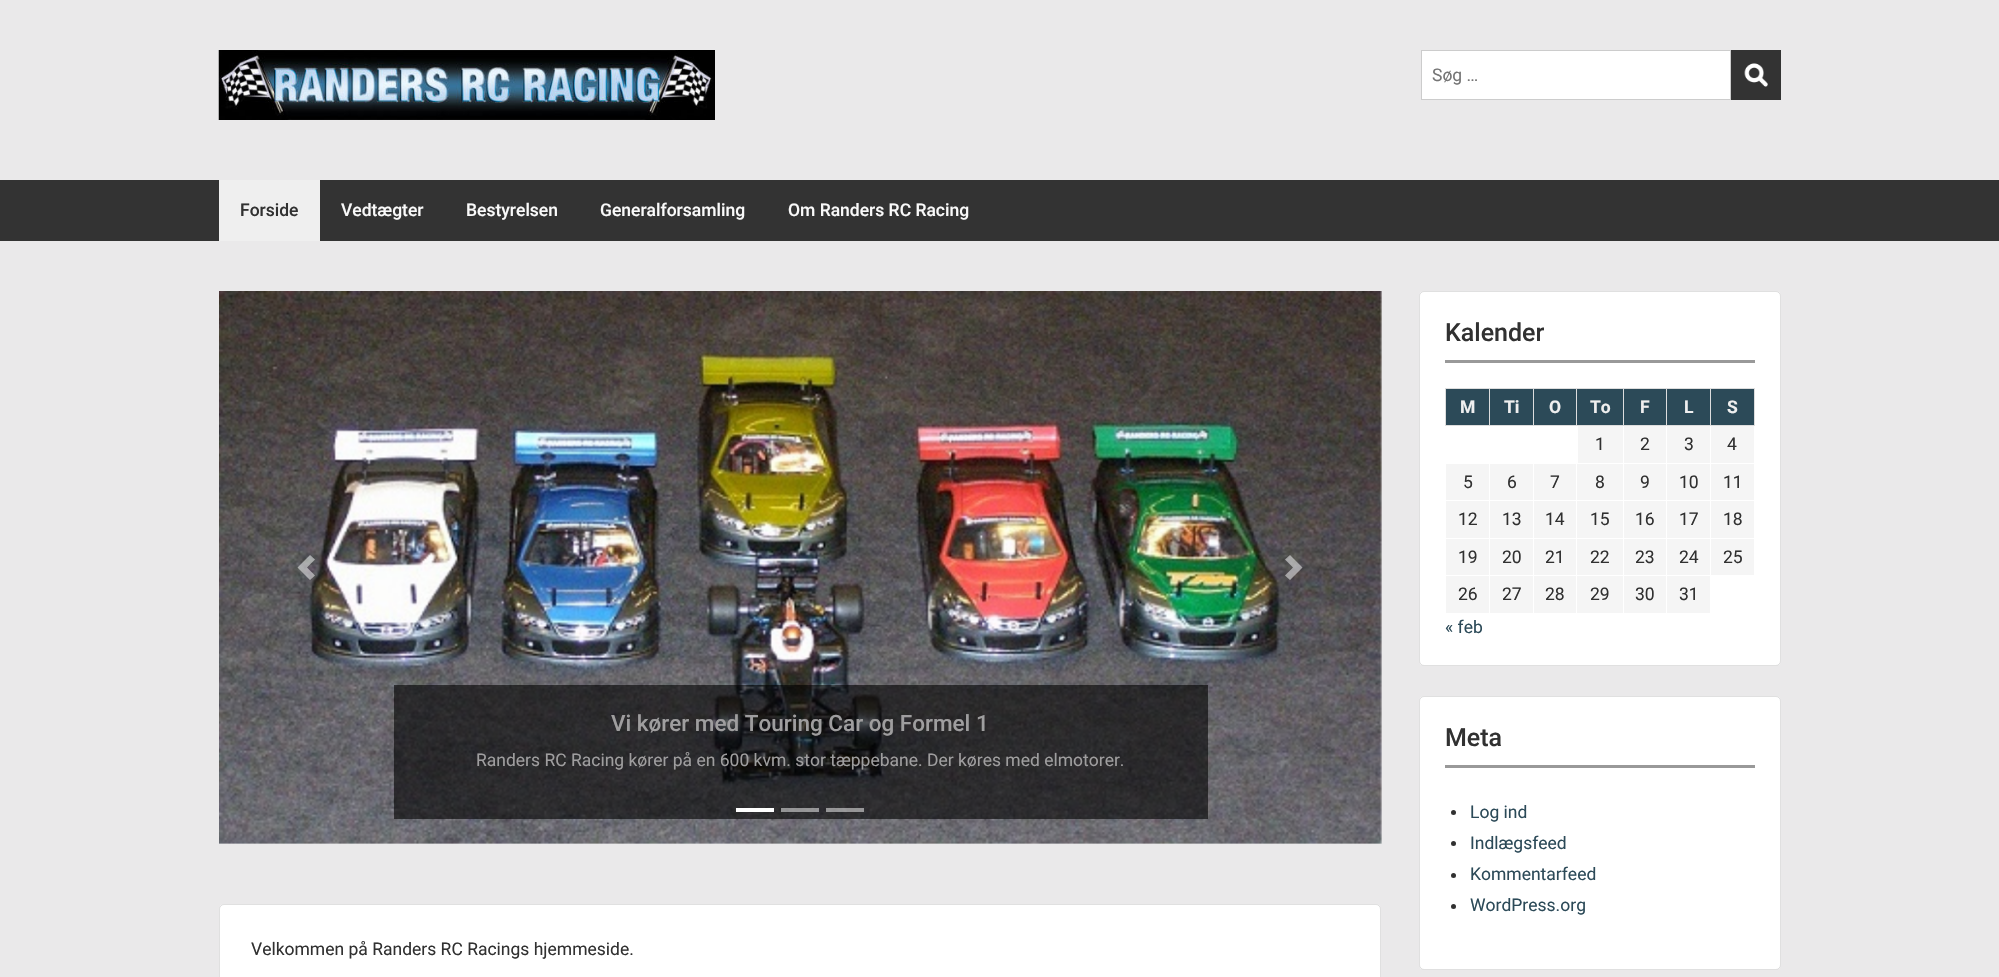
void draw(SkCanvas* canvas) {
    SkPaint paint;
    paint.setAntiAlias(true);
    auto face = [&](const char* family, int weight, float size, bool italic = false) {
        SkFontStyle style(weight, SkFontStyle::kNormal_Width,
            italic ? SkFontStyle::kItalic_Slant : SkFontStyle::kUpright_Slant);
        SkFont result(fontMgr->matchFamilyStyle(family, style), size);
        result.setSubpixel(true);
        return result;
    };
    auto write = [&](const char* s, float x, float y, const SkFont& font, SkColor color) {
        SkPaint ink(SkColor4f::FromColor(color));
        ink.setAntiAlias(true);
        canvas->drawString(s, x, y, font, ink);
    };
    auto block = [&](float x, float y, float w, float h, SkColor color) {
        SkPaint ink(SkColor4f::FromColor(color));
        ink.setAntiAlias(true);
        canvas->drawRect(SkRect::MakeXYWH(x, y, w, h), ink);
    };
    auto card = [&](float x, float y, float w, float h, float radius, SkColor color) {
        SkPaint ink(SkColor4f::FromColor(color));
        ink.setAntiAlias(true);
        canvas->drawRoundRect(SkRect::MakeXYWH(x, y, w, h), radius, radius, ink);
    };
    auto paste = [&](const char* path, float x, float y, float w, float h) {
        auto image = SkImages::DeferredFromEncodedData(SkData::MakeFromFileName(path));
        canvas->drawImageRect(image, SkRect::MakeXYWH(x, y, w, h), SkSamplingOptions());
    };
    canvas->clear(SkColorSetRGB(234, 233, 234));
    paste("pic1.png", 218, 50, 497, 70);
    paint.setColor(SK_ColorWHITE);
    canvas->drawRect(SkRect::MakeXYWH(1421.5f, 50.5f, 309, 49), paint);
    paint.setStyle(SkPaint::kStroke_Style);
    paint.setStrokeWidth(1);
    paint.setColor(SkColorSetRGB(204, 204, 204));
    canvas->drawRect(SkRect::MakeXYWH(1421.5f, 50.5f, 309, 49), paint);
    auto kFont1 = face("Roboto", 400, 17.5f);
    write("Søg …", 1432, 81, kFont1, SkColorSetRGB(117, 117, 117));
    block(1731, 50, 50, 50, SkColorSetRGB(51, 51, 51));
    paste("pic2.png", 1744, 63, 24, 24);
    block(0, 180, 1999, 61, SkColorSetRGB(51, 51, 51));
    block(219, 180, 101, 61, SkColorSetRGB(239, 239, 239));
    auto kFont2 = face("Roboto", 500, 17.5f);
    write("Forside", 240, 216, kFont2, SkColorSetRGB(49, 49, 49));
    write("Vedtægter", 341, 216, kFont2, SkColorSetRGB(250, 250, 250));
    write("Bestyrelsen", 466, 216, kFont2, SkColorSetRGB(250, 250, 250));
    write("Generalforsamling", 600, 216, kFont2, SkColorSetRGB(250, 250, 250));
    write("Om Randers RC Racing", 788, 216, kFont2, SkColorSetRGB(250, 250, 250));
    paste("pic3.png", 219, 291, 1163, 553);
    paint.setStyle(SkPaint::kFill_Style);
    paint.setColor(SkColorSetARGB(128, 255, 255, 255));
    canvas->drawPath(SkPathBuilder().moveTo(310, 555).lineTo(297.5f, 567.5f).lineTo(310, 580).lineTo(315, 575.5f).lineTo(307, 567.5f).lineTo(315, 559.5f).close().detach(), paint);
    canvas->drawPath(SkPathBuilder().moveTo(1290, 555).lineTo(1285, 559.5f).lineTo(1293, 567.5f).lineTo(1285, 575.5f).lineTo(1290, 580).lineTo(1302.5f, 567.5f).close().detach(), paint);
    block(394, 685, 814, 134, SkColorSetARGB(153, 0, 0, 0));
    auto kFont3 = face("Roboto", 500, 22.5f);
    write("Vi kører med Touring Car og Formel 1", 611, 731, kFont3, SkColorSetRGB(159, 158, 159));
    write("Randers RC Racing kører på en 600 kvm. stor tæppebane. Der køres med elmotorer.", 476, 766, kFont1, SkColorSetRGB(159, 158, 159));
    block(736, 808, 38, 4, SK_ColorWHITE);
    block(781, 808, 38, 4, SkColorSetARGB(128, 255, 255, 255));
    block(826, 808, 38, 4, SkColorSetARGB(128, 255, 255, 255));
    card(219, 904, 1162, 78, 5, SK_ColorWHITE);
    paint.setStyle(SkPaint::kStroke_Style);
    paint.setColor(SkColorSetARGB(31, 0, 0, 0));
    canvas->drawRoundRect(SkRect::MakeXYWH(219.5f, 904.5f, 1161, 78), 4.5f, 4.5f, paint);
    write("Velkommen på Randers RC Racings hjemmeside.", 251, 955, kFont1, SkColorSetRGB(49, 49, 49));
    card(1419, 291, 362, 375, 5, SK_ColorWHITE);
    canvas->drawRoundRect(SkRect::MakeXYWH(1419.5f, 291.5f, 361, 374), 4.5f, 4.5f, paint);
    block(1445, 360, 310, 3, SkColorSetRGB(153, 153, 153));
    auto kFont4 = face("Roboto", 500, 25);
    write("Kalender", 1445, 341, kFont4, SkColorSetRGB(49, 49, 49));
    block(1446, 389, 43, 36, SkColorSetRGB(44, 74, 88));
    block(1710, 388, 45, 1, SkColorSetRGB(221, 221, 221));
    block(1754, 388, 1, 38, SkColorSetRGB(221, 221, 221));
    block(1710, 425, 45, 1, SkColorSetRGB(221, 221, 221));
    block(1710, 388, 1, 38, SkColorSetRGB(221, 221, 221));
    block(1666, 388, 45, 1, SkColorSetRGB(221, 221, 221));
    block(1666, 425, 45, 1, SkColorSetRGB(221, 221, 221));
    block(1666, 388, 1, 38, SkColorSetRGB(221, 221, 221));
    block(1623, 388, 45, 1, SkColorSetRGB(221, 221, 221));
    block(1623, 425, 45, 1, SkColorSetRGB(221, 221, 221));
    block(1623, 388, 1, 38, SkColorSetRGB(221, 221, 221));
    block(1576, 388, 48, 1, SkColorSetRGB(221, 221, 221));
    block(1534, 389, 89, 36, SkColorSetRGB(44, 74, 88));
    block(1576, 425, 48, 1, SkColorSetRGB(221, 221, 221));
    block(1576, 388, 1, 38, SkColorSetRGB(221, 221, 221));
    block(1533, 388, 45, 1, SkColorSetRGB(221, 221, 221));
    block(1533, 425, 45, 1, SkColorSetRGB(221, 221, 221));
    block(1533, 388, 1, 38, SkColorSetRGB(221, 221, 221));
    block(1489, 388, 45, 1, SkColorSetRGB(221, 221, 221));
    block(1489, 425, 45, 1, SkColorSetRGB(221, 221, 221));
    block(1489, 388, 1, 38, SkColorSetRGB(221, 221, 221));
    block(1445, 388, 45, 1, SkColorSetRGB(221, 221, 221));
    block(1445, 425, 45, 1, SkColorSetRGB(221, 221, 221));
    block(1445, 388, 1, 38, SkColorSetRGB(221, 221, 221));
    auto kFont5 = face("Roboto", 700, 17.5f);
    write("M", 1460, 413, kFont5, SkColorSetRGB(239, 239, 239));
    block(1490, 389, 43, 36, SkColorSetRGB(44, 74, 88));
    write("Ti", 1504, 413, kFont5, SkColorSetRGB(239, 239, 239));
    write("O", 1549, 413, kFont5, SkColorSetRGB(239, 239, 239));
    write("To", 1590, 413, kFont5, SkColorSetRGB(239, 239, 239));
    block(1624, 389, 42, 36, SkColorSetRGB(44, 74, 88));
    write("F", 1640, 413, kFont5, SkColorSetRGB(239, 239, 239));
    block(1667, 389, 43, 36, SkColorSetRGB(44, 74, 88));
    write("L", 1684, 413, kFont5, SkColorSetRGB(239, 239, 239));
    block(1711, 389, 43, 36, SkColorSetRGB(44, 74, 88));
    write("S", 1727, 413, kFont5, SkColorSetRGB(239, 239, 239));
    block(1578, 426, 45, 37, SkColorSetRGB(245, 245, 245));
    write("1", 1595, 450, kFont1, SkColorSetRGB(49, 49, 49));
    block(1624, 426, 42, 37, SkColorSetRGB(245, 245, 245));
    write("2", 1640, 450, kFont1, SkColorSetRGB(49, 49, 49));
    block(1667, 426, 43, 37, SkColorSetRGB(245, 245, 245));
    write("3", 1684, 450, kFont1, SkColorSetRGB(49, 49, 49));
    block(1711, 426, 43, 37, SkColorSetRGB(245, 245, 245));
    write("4", 1727, 450, kFont1, SkColorSetRGB(49, 49, 49));
    block(1446, 464, 43, 36, SkColorSetRGB(245, 245, 245));
    write("5", 1463, 488, kFont1, SkColorSetRGB(49, 49, 49));
    block(1490, 464, 43, 36, SkColorSetRGB(245, 245, 245));
    write("6", 1507, 488, kFont1, SkColorSetRGB(49, 49, 49));
    block(1534, 464, 89, 36, SkColorSetRGB(245, 245, 245));
    write("7", 1550, 488, kFont1, SkColorSetRGB(49, 49, 49));
    write("8", 1595, 488, kFont1, SkColorSetRGB(49, 49, 49));
    block(1624, 464, 42, 36, SkColorSetRGB(245, 245, 245));
    write("9", 1640, 488, kFont1, SkColorSetRGB(49, 49, 49));
    block(1667, 464, 43, 36, SkColorSetRGB(245, 245, 245));
    write("10", 1679, 488, kFont1, SkColorSetRGB(49, 49, 49));
    block(1711, 464, 43, 36, SkColorSetRGB(245, 245, 245));
    write("11", 1723, 488, kFont1, SkColorSetRGB(49, 49, 49));
    block(1446, 501, 43, 37, SkColorSetRGB(245, 245, 245));
    write("12", 1458, 525, kFont1, SkColorSetRGB(49, 49, 49));
    block(1490, 501, 43, 37, SkColorSetRGB(245, 245, 245));
    write("13", 1502, 525, kFont1, SkColorSetRGB(49, 49, 49));
    block(1534, 501, 89, 37, SkColorSetRGB(245, 245, 245));
    write("14", 1545, 525, kFont1, SkColorSetRGB(49, 49, 49));
    write("15", 1590, 525, kFont1, SkColorSetRGB(49, 49, 49));
    block(1624, 501, 42, 37, SkColorSetRGB(245, 245, 245));
    write("16", 1635, 525, kFont1, SkColorSetRGB(49, 49, 49));
    block(1667, 501, 43, 37, SkColorSetRGB(245, 245, 245));
    write("17", 1679, 525, kFont1, SkColorSetRGB(49, 49, 49));
    block(1711, 501, 43, 37, SkColorSetRGB(245, 245, 245));
    write("18", 1723, 525, kFont1, SkColorSetRGB(49, 49, 49));
    block(1446, 539, 43, 36, SkColorSetRGB(245, 245, 245));
    write("19", 1458, 563, kFont1, SkColorSetRGB(49, 49, 49));
    block(1490, 539, 43, 36, SkColorSetRGB(245, 245, 245));
    write("20", 1502, 563, kFont1, SkColorSetRGB(49, 49, 49));
    block(1534, 539, 89, 36, SkColorSetRGB(245, 245, 245));
    write("21", 1545, 563, kFont1, SkColorSetRGB(49, 49, 49));
    write("22", 1590, 563, kFont1, SkColorSetRGB(49, 49, 49));
    block(1624, 539, 42, 36, SkColorSetRGB(245, 245, 245));
    write("23", 1635, 563, kFont1, SkColorSetRGB(49, 49, 49));
    block(1667, 539, 43, 36, SkColorSetRGB(245, 245, 245));
    write("24", 1679, 563, kFont1, SkColorSetRGB(49, 49, 49));
    block(1711, 539, 43, 36, SkColorSetRGB(245, 245, 245));
    write("25", 1723, 563, kFont1, SkColorSetRGB(49, 49, 49));
    block(1446, 576, 43, 37, SkColorSetRGB(245, 245, 245));
    write("26", 1458, 600, kFont1, SkColorSetRGB(49, 49, 49));
    block(1490, 576, 43, 37, SkColorSetRGB(245, 245, 245));
    write("27", 1502, 600, kFont1, SkColorSetRGB(49, 49, 49));
    block(1534, 576, 89, 37, SkColorSetRGB(245, 245, 245));
    write("28", 1545, 600, kFont1, SkColorSetRGB(49, 49, 49));
    block(1576, 463, 1, 151, SK_ColorWHITE);
    write("29", 1590, 600, kFont1, SkColorSetRGB(49, 49, 49));
    block(1624, 576, 42, 37, SkColorSetRGB(245, 245, 245));
    write("30", 1635, 600, kFont1, SkColorSetRGB(49, 49, 49));
    block(1667, 576, 43, 37, SkColorSetRGB(245, 245, 245));
    write("31", 1679, 600, kFont1, SkColorSetRGB(49, 49, 49));
    write("« feb", 1445, 633, kFont1, SkColorSetRGB(44, 74, 88));
    card(1419, 696, 362, 274, 5, SK_ColorWHITE);
    canvas->drawRoundRect(SkRect::MakeXYWH(1419.5f, 696.5f, 361, 273), 4.5f, 4.5f, paint);
    block(1445, 765, 310, 3, SkColorSetRGB(153, 153, 153));
    write("Meta", 1445, 746, kFont4, SkColorSetRGB(49, 49, 49));
    paint.setStyle(SkPaint::kFill_Style);
    paint.setColor(SkColorSetRGB(49, 49, 49));
    canvas->drawCircle(1453.5f, 812.5f, 2.5f, paint);
    write("Log ind", 1470, 818, kFont1, SkColorSetRGB(44, 74, 88));
    canvas->drawCircle(1453.5f, 843.5f, 2.5f, paint);
    write("Indlægsfeed", 1470, 849, kFont1, SkColorSetRGB(44, 74, 88));
    canvas->drawCircle(1453.5f, 875.5f, 2.5f, paint);
    write("Kommentarfeed", 1470, 880, kFont1, SkColorSetRGB(44, 74, 88));
    canvas->drawCircle(1453.5f, 906.5f, 2.5f, paint);
    write("WordPress.org", 1470, 911, kFont1, SkColorSetRGB(44, 74, 88));
}
